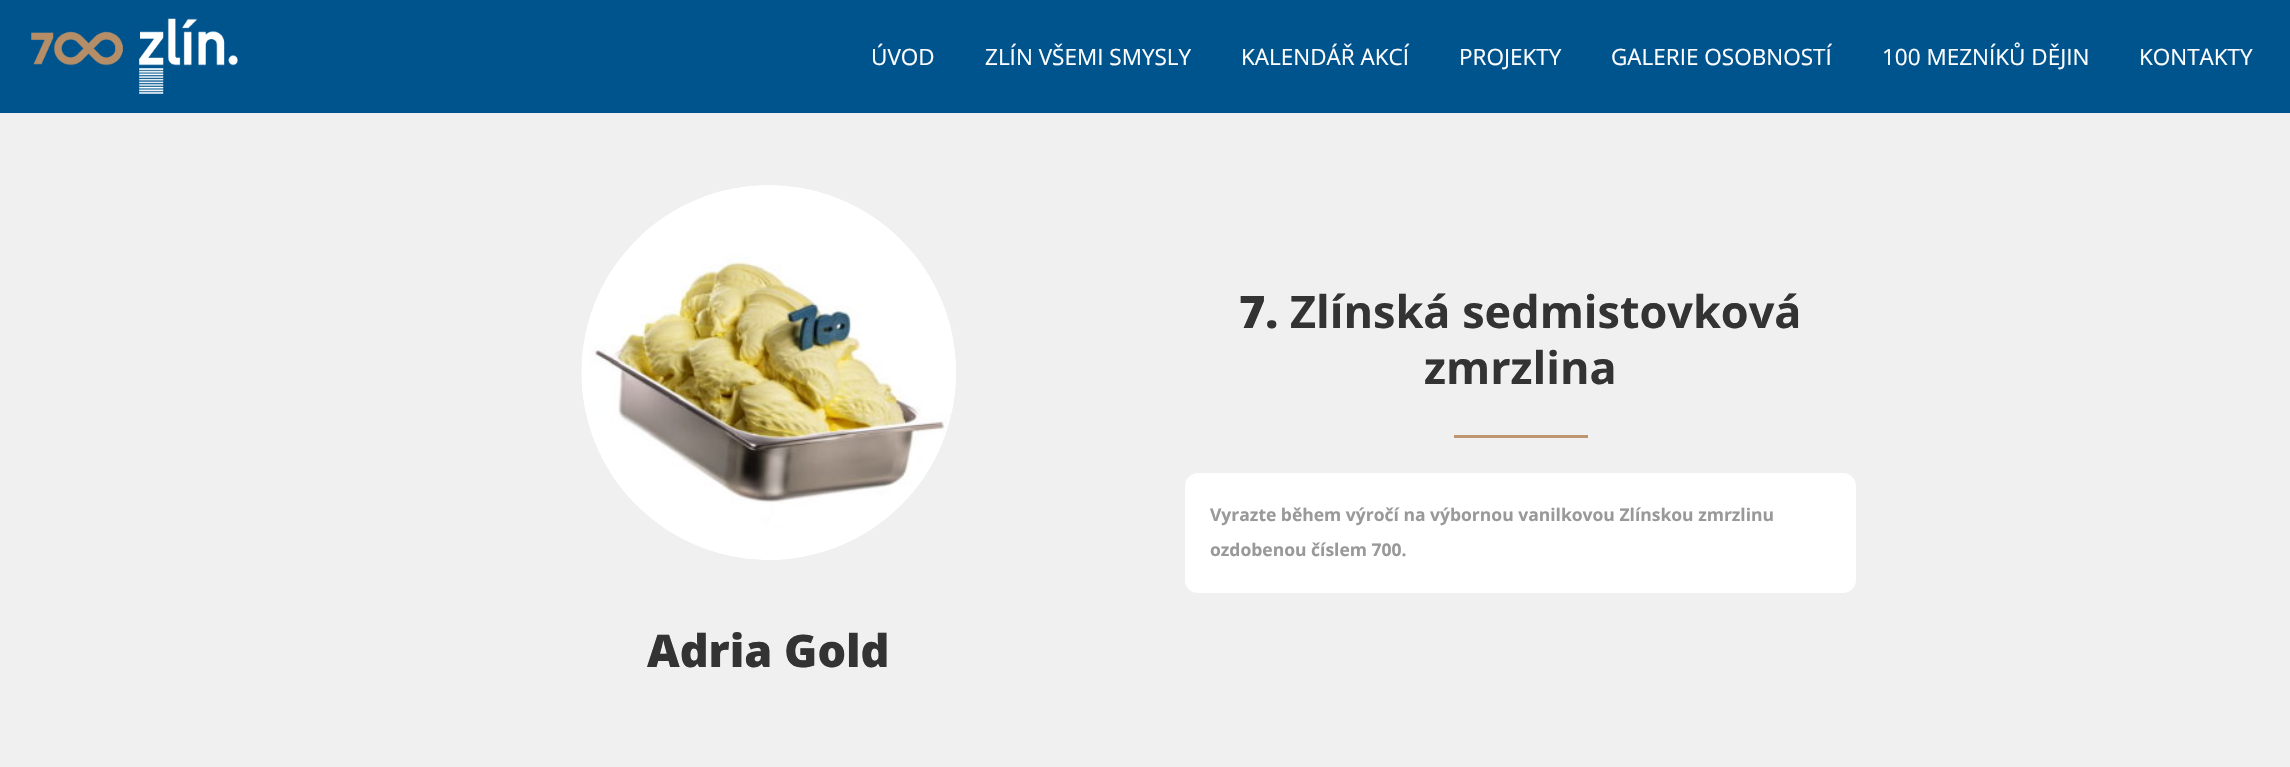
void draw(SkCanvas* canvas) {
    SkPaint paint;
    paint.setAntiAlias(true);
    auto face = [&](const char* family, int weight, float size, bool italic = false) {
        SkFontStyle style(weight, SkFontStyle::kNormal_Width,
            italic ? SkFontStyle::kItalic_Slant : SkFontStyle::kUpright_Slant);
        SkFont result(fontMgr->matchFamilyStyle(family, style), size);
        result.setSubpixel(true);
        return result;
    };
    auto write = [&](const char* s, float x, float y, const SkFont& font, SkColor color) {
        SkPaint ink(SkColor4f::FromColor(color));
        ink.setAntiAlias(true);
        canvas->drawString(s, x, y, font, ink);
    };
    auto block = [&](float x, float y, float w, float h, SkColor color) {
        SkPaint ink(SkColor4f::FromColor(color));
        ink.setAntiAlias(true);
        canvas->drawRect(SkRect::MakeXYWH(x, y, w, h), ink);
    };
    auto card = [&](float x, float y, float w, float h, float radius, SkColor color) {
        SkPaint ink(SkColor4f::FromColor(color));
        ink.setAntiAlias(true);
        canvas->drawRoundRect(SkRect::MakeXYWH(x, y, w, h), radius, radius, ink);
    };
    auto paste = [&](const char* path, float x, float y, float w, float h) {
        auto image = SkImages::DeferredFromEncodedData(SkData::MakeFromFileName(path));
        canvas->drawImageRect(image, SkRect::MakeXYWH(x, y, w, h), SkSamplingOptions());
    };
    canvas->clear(SkColorSetRGB(240, 240, 240));
    block(0, 0, 2290, 113, SkColorSetRGB(0, 84, 142));
    paste("pic1.png", 31, 18, 207, 76);
    auto kFont1 = face("Open Sans", 400, 22.5f);
    write("ÚVOD", 871, 65, kFont1, SK_ColorWHITE);
    write("ZLÍN VŠEMI SMYSLY", 985, 65, kFont1, SK_ColorWHITE);
    write("KALENDÁŘ AKCÍ", 1241, 65, kFont1, SK_ColorWHITE);
    write("PROJEKTY", 1459, 65, kFont1, SK_ColorWHITE);
    write("GALERIE OSOBNOSTÍ", 1611, 65, kFont1, SK_ColorWHITE);
    write("100 MEZNÍKŮ DĚJIN", 1882, 65, kFont1, SK_ColorWHITE);
    write("KONTAKTY", 2139, 65, kFont1, SK_ColorWHITE);
    auto kFont2 = face("Open Sans", 800, 45);
    write("7.", 1239, 328, kFont2, SkColorSetRGB(51, 51, 51));
    auto kFont3 = face("Open Sans", 700, 45);
    write("Zlínská sedmistovková", 1290, 328, kFont3, SkColorSetRGB(51, 51, 51));
    write("zmrzlina", 1424, 384, kFont3, SkColorSetRGB(51, 51, 51));
    block(1454, 435, 134, 3, SkColorSetRGB(189, 149, 111));
    card(1185, 473, 671, 120, 13, SK_ColorWHITE);
    auto kFont4 = face("Open Sans", 700, 17.5f);
    write("Vyrazte během výročí na výbornou vanilkovou Zlínskou zmrzlinu", 1210, 521, kFont4, SkColorSetRGB(153, 153, 153));
    write("ozdobenou číslem 700.", 1210, 556, kFont4, SkColorSetRGB(153, 153, 153));
    paste("pic2.png", 581, 185, 375, 375);
    write("Adria Gold", 647, 667, kFont2, SkColorSetRGB(51, 51, 51));
}
